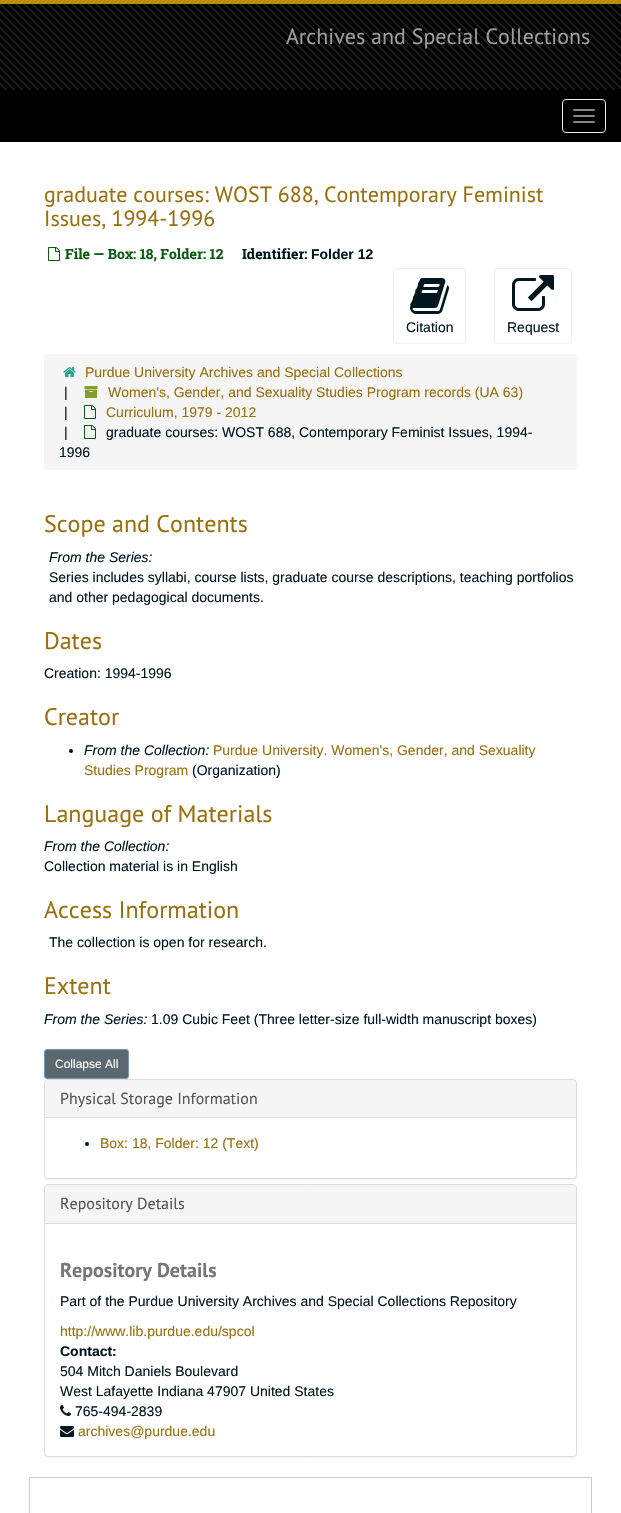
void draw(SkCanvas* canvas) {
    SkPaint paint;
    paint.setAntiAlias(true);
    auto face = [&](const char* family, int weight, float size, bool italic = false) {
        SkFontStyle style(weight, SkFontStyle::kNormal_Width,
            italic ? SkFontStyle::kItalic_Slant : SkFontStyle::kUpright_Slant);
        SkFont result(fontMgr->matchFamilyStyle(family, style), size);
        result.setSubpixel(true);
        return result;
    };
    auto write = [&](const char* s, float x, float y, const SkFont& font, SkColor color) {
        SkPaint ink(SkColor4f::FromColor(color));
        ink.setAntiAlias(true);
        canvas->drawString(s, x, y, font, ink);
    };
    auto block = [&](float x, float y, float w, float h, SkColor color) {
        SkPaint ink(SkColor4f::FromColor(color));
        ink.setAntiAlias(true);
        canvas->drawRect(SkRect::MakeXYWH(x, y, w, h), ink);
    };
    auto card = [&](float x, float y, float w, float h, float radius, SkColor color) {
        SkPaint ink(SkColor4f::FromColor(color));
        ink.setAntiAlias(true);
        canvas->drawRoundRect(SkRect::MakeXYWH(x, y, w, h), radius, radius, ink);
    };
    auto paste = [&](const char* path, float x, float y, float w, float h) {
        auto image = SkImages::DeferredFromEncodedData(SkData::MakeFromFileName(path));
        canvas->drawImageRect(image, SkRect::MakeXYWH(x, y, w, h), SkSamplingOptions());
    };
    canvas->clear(SK_ColorWHITE);
    paste("pic1.png", 0, 4, 621, 86);
    block(0, 0, 621, 4, SkColorSetRGB(187, 141, 10));
    auto kFont1 = face("PT Sans", 400, 22);
    write("Archives and Special Collections", 286, 44, kFont1, SkColorSetRGB(158, 158, 158));
    block(0, 90, 621, 52, SK_ColorBLACK);
    paint.setStyle(SkPaint::kStroke_Style);
    paint.setStrokeWidth(1);
    paint.setColor(SkColorSetRGB(238, 238, 238));
    canvas->drawRoundRect(SkRect::MakeXYWH(562.5f, 99.5f, 43, 33), 3.5f, 3.5f, paint);
    card(573, 109, 22, 2, 1, SkColorSetRGB(136, 136, 136));
    card(573, 115, 22, 2, 1, SkColorSetRGB(136, 136, 136));
    card(573, 121, 22, 2, 1, SkColorSetRGB(136, 136, 136));
    write("graduate courses: WOST 688, Contemporary Feminist", 44, 202, kFont1, SkColorSetRGB(152, 112, 13));
    write("Issues, 1994-1996", 44, 226, kFont1, SkColorSetRGB(152, 112, 13));
    paste("pic2.png", 48, 247, 12, 14);
    auto kFont2 = face("Roboto Slab", 700, 14);
    write("File — Box: 18, Folder: 12", 65, 259, kFont2, SkColorSetRGB(8, 92, 17));
    write("Identifier:", 242, 259, kFont2, SkColorSetRGB(0, 23, 31));
    auto kFont3 = face("Liberation Sans", 700, 14);
    write("Folder 12", 311, 259, kFont3, SkColorSetRGB(0, 23, 31));
    canvas->drawRoundRect(SkRect::MakeXYWH(393.5f, 268.5f, 72, 75), 3.5f, 3.5f, paint);
    paste("pic3.png", 410, 278, 39, 36);
    auto kFont4 = face("Liberation Sans", 400, 14);
    write("Citation", 406, 332, kFont4, SkColorSetRGB(0, 23, 31));
    canvas->drawRoundRect(SkRect::MakeXYWH(494.5f, 268.5f, 77, 75), 3.5f, 3.5f, paint);
    paste("pic4.png", 512, 275, 42, 36);
    write("Request", 507, 332, kFont4, SkColorSetRGB(0, 23, 31));
    card(44, 354, 533, 116, 4, SkColorSetRGB(245, 245, 245));
    paste("pic5.png", 63, 367, 13, 10);
    write("Purdue University Archives and Special Collections", 85, 377, kFont4, SkColorSetRGB(152, 112, 13));
    write("|", 64, 397, kFont4, SkColorSetRGB(0, 23, 31));
    paste("pic6.png", 84, 386, 14, 12);
    write("Women's, Gender, and Sexuality Studies Program records (UA 63)", 108, 397, kFont4, SkColorSetRGB(152, 112, 13));
    write("|", 64, 417, kFont4, SkColorSetRGB(0, 23, 31));
    paste("pic7.png", 84, 405, 12, 14);
    write("Curriculum, 1979 - 2012", 106, 417, kFont4, SkColorSetRGB(152, 112, 13));
    write("|", 64, 437, kFont4, SkColorSetRGB(0, 23, 31));
    paste("pic7.png", 84, 425, 12, 14);
    write("graduate courses: WOST 688, Contemporary Feminist Issues, 1994-", 106, 437, kFont4, SkColorSetRGB(0, 23, 31));
    write("1996", 59, 457, kFont4, SkColorSetRGB(0, 23, 31));
    auto kFont5 = face("PT Sans", 400, 24);
    write("Scope and Contents", 44, 532, kFont5, SkColorSetRGB(152, 112, 13));
    auto kFont6 = face("Liberation Sans", 400, 14, true);
    write("From the Series:", 49, 562, kFont6, SkColorSetRGB(0, 23, 31));
    write("Series includes syllabi, course lists, graduate course descriptions, teaching portfolios", 49, 582, kFont4, SkColorSetRGB(0, 23, 31));
    write("and other pedagogical documents.", 49, 602, kFont4, SkColorSetRGB(0, 23, 31));
    write("Dates", 44, 649, kFont5, SkColorSetRGB(152, 112, 13));
    write("Creation: 1994-1996", 44, 678, kFont4, SkColorSetRGB(0, 23, 31));
    write("Creator", 44, 725, kFont5, SkColorSetRGB(152, 112, 13));
    paint.setStyle(SkPaint::kFill_Style);
    paint.setColor(SkColorSetRGB(0, 23, 31));
    canvas->drawCircle(71, 751, 2, paint);
    write("From the Collection:", 84, 755, kFont6, SkColorSetRGB(0, 23, 31));
    write("Purdue University. Women's, Gender, and Sexuality", 213, 755, kFont4, SkColorSetRGB(152, 112, 13));
    write("Studies Program", 84, 775, kFont4, SkColorSetRGB(152, 112, 13));
    write("(Organization)", 192, 775, kFont4, SkColorSetRGB(0, 23, 31));
    write("Language of Materials", 44, 822, kFont5, SkColorSetRGB(152, 112, 13));
    write("From the Collection:", 44, 851, kFont6, SkColorSetRGB(0, 23, 31));
    write("Collection material is in English", 44, 871, kFont4, SkColorSetRGB(0, 23, 31));
    write("Access Information", 44, 918, kFont5, SkColorSetRGB(152, 112, 13));
    write("The collection is open for research.", 49, 947, kFont4, SkColorSetRGB(0, 23, 31));
    write("Extent", 44, 994, kFont5, SkColorSetRGB(152, 112, 13));
    write("From the Series:", 44, 1024, kFont6, SkColorSetRGB(0, 23, 31));
    write("1.09 Cubic Feet (Three letter-size full-width manuscript boxes)", 151, 1024, kFont4, SkColorSetRGB(0, 23, 31));
    paint.setColor(SkColorSetARGB(13, 0, 0, 0));
    paint.setMaskFilter(SkMaskFilter::MakeBlur(kNormal_SkBlurStyle, 0.5f));
    canvas->drawRoundRect(SkRect::MakeXYWH(44, 1080, 533, 100), 4, 4, paint);
    paint.setMaskFilter(nullptr);
    paint.setColor(SkColorSetRGB(91, 104, 112));
    canvas->drawRoundRect(SkRect::MakeXYWH(44.5f, 1049.5f, 84, 29), 2.5f, 2.5f, paint);
    paint.setStyle(SkPaint::kStroke_Style);
    paint.setColor(SkColorSetRGB(110, 153, 180));
    canvas->drawRoundRect(SkRect::MakeXYWH(44.5f, 1049.5f, 84, 29), 2.5f, 2.5f, paint);
    auto kFont7 = face("Liberation Sans", 400, 12);
    write("Collapse All", 55, 1068, kFont7, SK_ColorWHITE);
    paint.setStyle(SkPaint::kFill_Style);
    paint.setColor(SK_ColorWHITE);
    canvas->drawRoundRect(SkRect::MakeXYWH(44.5f, 1079.5f, 532, 99), 3.5f, 3.5f, paint);
    paint.setStyle(SkPaint::kStroke_Style);
    paint.setColor(SkColorSetRGB(221, 221, 221));
    canvas->drawRoundRect(SkRect::MakeXYWH(44.5f, 1079.5f, 532, 99), 3.5f, 3.5f, paint);
    paint.setStyle(SkPaint::kFill_Style);
    paint.setColor(SkColorSetRGB(245, 245, 245));
    canvas->drawPath(SkPathBuilder().moveTo(48, 1080).lineTo(573, 1080).cubicTo(574.5f, 1080, 576, 1081.5f, 576, 1083).lineTo(576, 1117).lineTo(45, 1117).lineTo(45, 1083).cubicTo(45, 1081.5f, 46.5f, 1080, 48, 1080).close().detach(), paint);
    auto kFont8 = face("PT Sans", 400, 16);
    write("Physical Storage Information", 60, 1104, kFont8, SkColorSetRGB(85, 85, 85));
    block(45, 1117, 531, 1, SkColorSetRGB(221, 221, 221));
    paint.setColor(SkColorSetRGB(0, 23, 31));
    canvas->drawCircle(87, 1144, 2, paint);
    write("Box: 18, Folder: 12 (Text)", 100, 1148, kFont4, SkColorSetRGB(152, 112, 13));
    paint.setColor(SkColorSetARGB(13, 0, 0, 0));
    paint.setMaskFilter(SkMaskFilter::MakeBlur(kNormal_SkBlurStyle, 0.5f));
    canvas->drawRoundRect(SkRect::MakeXYWH(44, 1185, 533, 273), 4, 4, paint);
    paint.setMaskFilter(nullptr);
    paint.setColor(SK_ColorWHITE);
    canvas->drawRoundRect(SkRect::MakeXYWH(44.5f, 1184.5f, 532, 272), 3.5f, 3.5f, paint);
    paint.setStyle(SkPaint::kStroke_Style);
    paint.setColor(SkColorSetRGB(221, 221, 221));
    canvas->drawRoundRect(SkRect::MakeXYWH(44.5f, 1184.5f, 532, 272), 3.5f, 3.5f, paint);
    paint.setStyle(SkPaint::kFill_Style);
    paint.setColor(SkColorSetRGB(245, 245, 245));
    canvas->drawPath(SkPathBuilder().moveTo(48, 1185).lineTo(573, 1185).cubicTo(574.5f, 1185, 576, 1186.5f, 576, 1188).lineTo(576, 1223).lineTo(45, 1223).lineTo(45, 1188).cubicTo(45, 1186.5f, 46.5f, 1185, 48, 1185).close().detach(), paint);
    write("Repository Details", 60, 1209, kFont8, SkColorSetRGB(85, 85, 85));
    block(45, 1223, 531, 1, SkColorSetRGB(221, 221, 221));
    auto kFont9 = face("PT Sans", 700, 20);
    write("Repository Details", 60, 1277, kFont9, SkColorSetRGB(119, 119, 119));
    write("Part of the Purdue University Archives and Special Collections Repository", 60, 1306, kFont4, SkColorSetRGB(0, 23, 31));
    write("http://www.lib.purdue.edu/spcol", 60, 1336, kFont4, SkColorSetRGB(152, 112, 13));
    write("Contact:", 60, 1356, kFont3, SkColorSetRGB(0, 23, 31));
    write("504 Mitch Daniels Boulevard", 60, 1376, kFont4, SkColorSetRGB(0, 23, 31));
    write("West Lafayette Indiana 47907 United States", 60, 1396, kFont4, SkColorSetRGB(0, 23, 31));
    paste("pic8.png", 60, 1405, 11, 11);
    write("765-494-2839", 75, 1416, kFont4, SkColorSetRGB(0, 23, 31));
    paste("pic9.png", 60, 1426, 14, 11);
    write("archives@purdue.edu", 78, 1436, kFont4, SkColorSetRGB(152, 112, 13));
    paint.setStyle(SkPaint::kStroke_Style);
    paint.setColor(SkColorSetRGB(204, 204, 204));
    canvas->drawRect(SkRect::MakeXYWH(29.5f, 1477.5f, 562, 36), paint);
}
